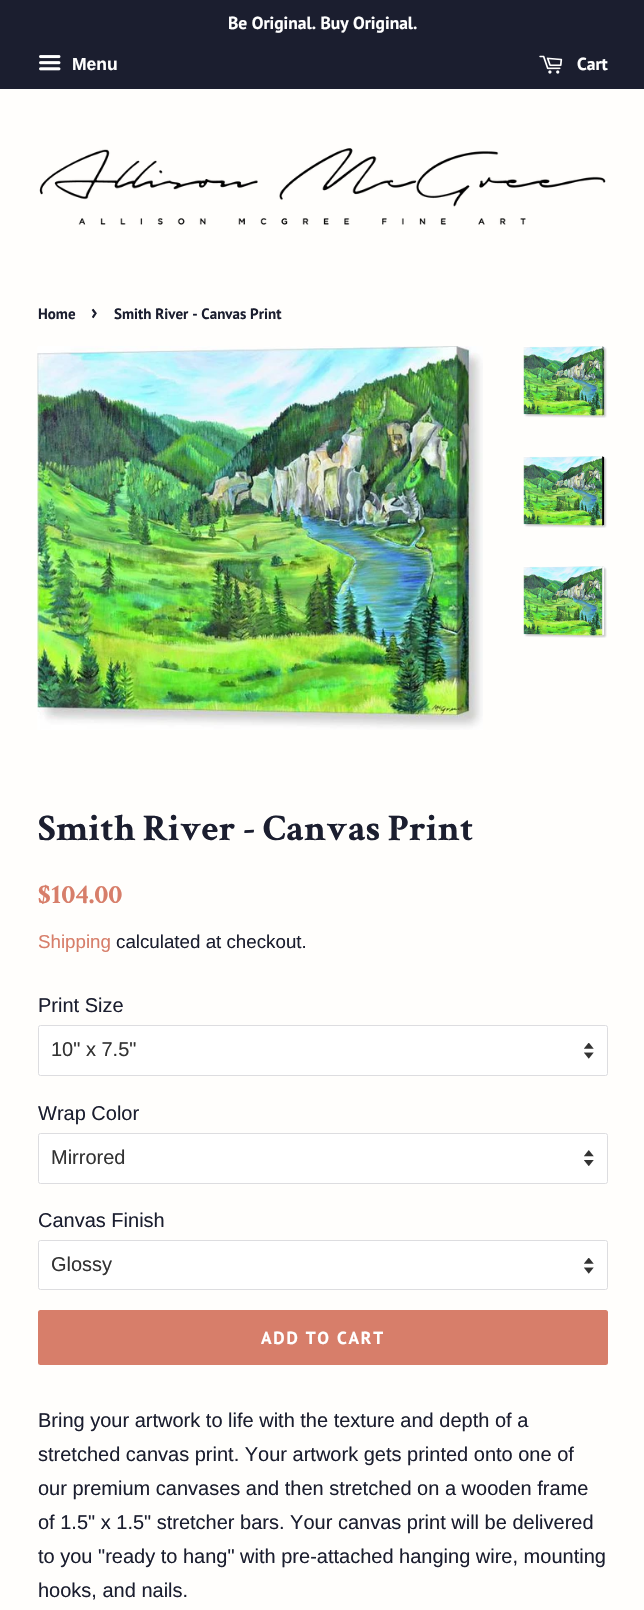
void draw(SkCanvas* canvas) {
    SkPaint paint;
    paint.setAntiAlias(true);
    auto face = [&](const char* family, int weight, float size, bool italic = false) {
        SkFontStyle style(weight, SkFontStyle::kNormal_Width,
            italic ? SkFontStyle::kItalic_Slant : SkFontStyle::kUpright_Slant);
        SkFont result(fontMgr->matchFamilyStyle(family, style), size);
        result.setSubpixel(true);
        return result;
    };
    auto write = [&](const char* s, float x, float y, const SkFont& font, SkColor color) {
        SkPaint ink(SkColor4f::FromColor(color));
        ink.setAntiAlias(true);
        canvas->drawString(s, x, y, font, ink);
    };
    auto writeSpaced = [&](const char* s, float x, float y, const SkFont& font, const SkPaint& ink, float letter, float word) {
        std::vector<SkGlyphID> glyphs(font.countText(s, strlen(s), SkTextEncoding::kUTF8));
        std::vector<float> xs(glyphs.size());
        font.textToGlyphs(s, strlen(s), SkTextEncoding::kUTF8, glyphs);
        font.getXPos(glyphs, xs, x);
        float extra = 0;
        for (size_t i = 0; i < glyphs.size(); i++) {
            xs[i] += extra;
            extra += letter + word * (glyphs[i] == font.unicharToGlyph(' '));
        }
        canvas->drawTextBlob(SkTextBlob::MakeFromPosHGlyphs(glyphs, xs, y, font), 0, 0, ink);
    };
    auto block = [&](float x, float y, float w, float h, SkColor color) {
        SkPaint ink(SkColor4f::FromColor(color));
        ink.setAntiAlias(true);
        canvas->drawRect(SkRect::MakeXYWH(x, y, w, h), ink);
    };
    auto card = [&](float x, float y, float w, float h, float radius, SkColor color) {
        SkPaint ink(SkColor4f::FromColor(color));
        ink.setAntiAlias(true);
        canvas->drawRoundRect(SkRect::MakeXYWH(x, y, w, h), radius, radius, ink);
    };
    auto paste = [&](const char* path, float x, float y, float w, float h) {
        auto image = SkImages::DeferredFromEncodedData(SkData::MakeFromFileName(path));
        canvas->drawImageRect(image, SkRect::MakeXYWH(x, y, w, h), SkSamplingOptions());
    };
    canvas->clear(SkColorSetRGB(255, 254, 252));
    block(0, 0, 644, 89, SkColorSetRGB(27, 30, 47));
    auto kFont1 = face("PT Sans", 700, 17.5f);
    write("Be Original. Buy Original.", 228, 29, kFont1, SK_ColorWHITE);
    paste("pic1.png", 39, 55, 22, 16);
    auto kFont2 = face("Liberation Sans", 700, 17.5f);
    write("Menu", 72, 70, kFont2, SK_ColorWHITE);
    paste("pic2.png", 539, 55, 24, 19);
    write("Cart", 577, 70, kFont1, SK_ColorWHITE);
    paste("pic3.png", 39, 148, 567, 77);
    auto kFont3 = face("PT Sans", 700, 15);
    write("Home", 38, 319, kFont3, SkColorSetRGB(27, 30, 47));
    auto kFont4 = face("PT Sans", 700, 21);
    write("›", 91, 319, kFont4, SkColorSetRGB(27, 30, 47));
    write("Smith River - Canvas Print", 114, 319, kFont3, SkColorSetRGB(27, 30, 47));
    paste("pic4.png", 37, 346, 446, 384);
    paste("pic5.png", 523, 346, 84, 72);
    paste("pic6.png", 523, 456, 84, 72);
    paste("pic7.png", 523, 566, 84, 72);
    auto kFont5 = face("Crimson Text", 700, 37.5f);
    write("Smith River - Canvas Print", 38, 840, kFont5, SkColorSetRGB(27, 30, 47));
    auto kFont6 = face("Crimson Text", 700, 28);
    write("$104.00", 38, 903, kFont6, SkColorSetRGB(215, 126, 106));
    auto kFont7 = face("Liberation Sans", 400, 18.75f);
    write("Shipping", 38, 948, kFont7, SkColorSetRGB(215, 126, 106));
    write("calculated at checkout.", 116, 948, kFont7, SkColorSetRGB(27, 30, 47));
    auto kFont8 = face("Liberation Sans", 400, 20);
    write("Print Size", 38, 1012, kFont8, SkColorSetRGB(27, 30, 47));
    card(38, 1025, 570, 51, 2.5f, SK_ColorWHITE);
    paste("pic8.png", 584, 1043, 10, 16);
    paint.setStyle(SkPaint::kStroke_Style);
    paint.setStrokeWidth(1);
    paint.setColor(SkColorSetRGB(221, 221, 224));
    canvas->drawRoundRect(SkRect::MakeXYWH(38.5f, 1025.5f, 569, 50), 2, 2, paint);
    write("10\" x 7.5\"", 51, 1056, kFont8, SkColorSetRGB(51, 51, 51));
    write("Wrap Color", 38, 1120, kFont8, SkColorSetRGB(27, 30, 47));
    card(38, 1133, 570, 51, 2.5f, SK_ColorWHITE);
    paste("pic9.png", 584, 1150, 10, 16);
    canvas->drawRoundRect(SkRect::MakeXYWH(38.5f, 1133.5f, 569, 50), 2, 2, paint);
    write("Mirrored", 51, 1164, kFont8, SkColorSetRGB(51, 51, 51));
    write("Canvas Finish", 38, 1227, kFont8, SkColorSetRGB(27, 30, 47));
    card(38, 1240, 570, 50, 2.5f, SK_ColorWHITE);
    paste("pic8.png", 584, 1258, 10, 16);
    canvas->drawRoundRect(SkRect::MakeXYWH(38.5f, 1240.5f, 569, 49), 2, 2, paint);
    write("Glossy", 51, 1271, kFont8, SkColorSetRGB(51, 51, 51));
    card(38, 1310, 570, 55, 2.5f, SkColorSetRGB(215, 126, 106));
    paint.setStyle(SkPaint::kFill_Style);
    paint.setColor(SK_ColorWHITE);
    writeSpaced("ADD TO CART", 261, 1344, kFont1, paint, 1.75f, 0);
    write("Bring your artwork to life with the texture and depth of a", 38, 1427, kFont8, SkColorSetRGB(27, 30, 47));
    write("stretched canvas print. Your artwork gets printed onto one of", 38, 1461, kFont8, SkColorSetRGB(27, 30, 47));
    write("our premium canvases and then stretched on a wooden frame", 38, 1495, kFont8, SkColorSetRGB(27, 30, 47));
    write("of 1.5\" x 1.5\" stretcher bars. Your canvas print will be delivered", 38, 1529, kFont8, SkColorSetRGB(27, 30, 47));
    write("to you \"ready to hang\" with pre-attached hanging wire, mounting", 38, 1563, kFont8, SkColorSetRGB(27, 30, 47));
    write("hooks, and nails.", 38, 1597, kFont8, SkColorSetRGB(27, 30, 47));
}
